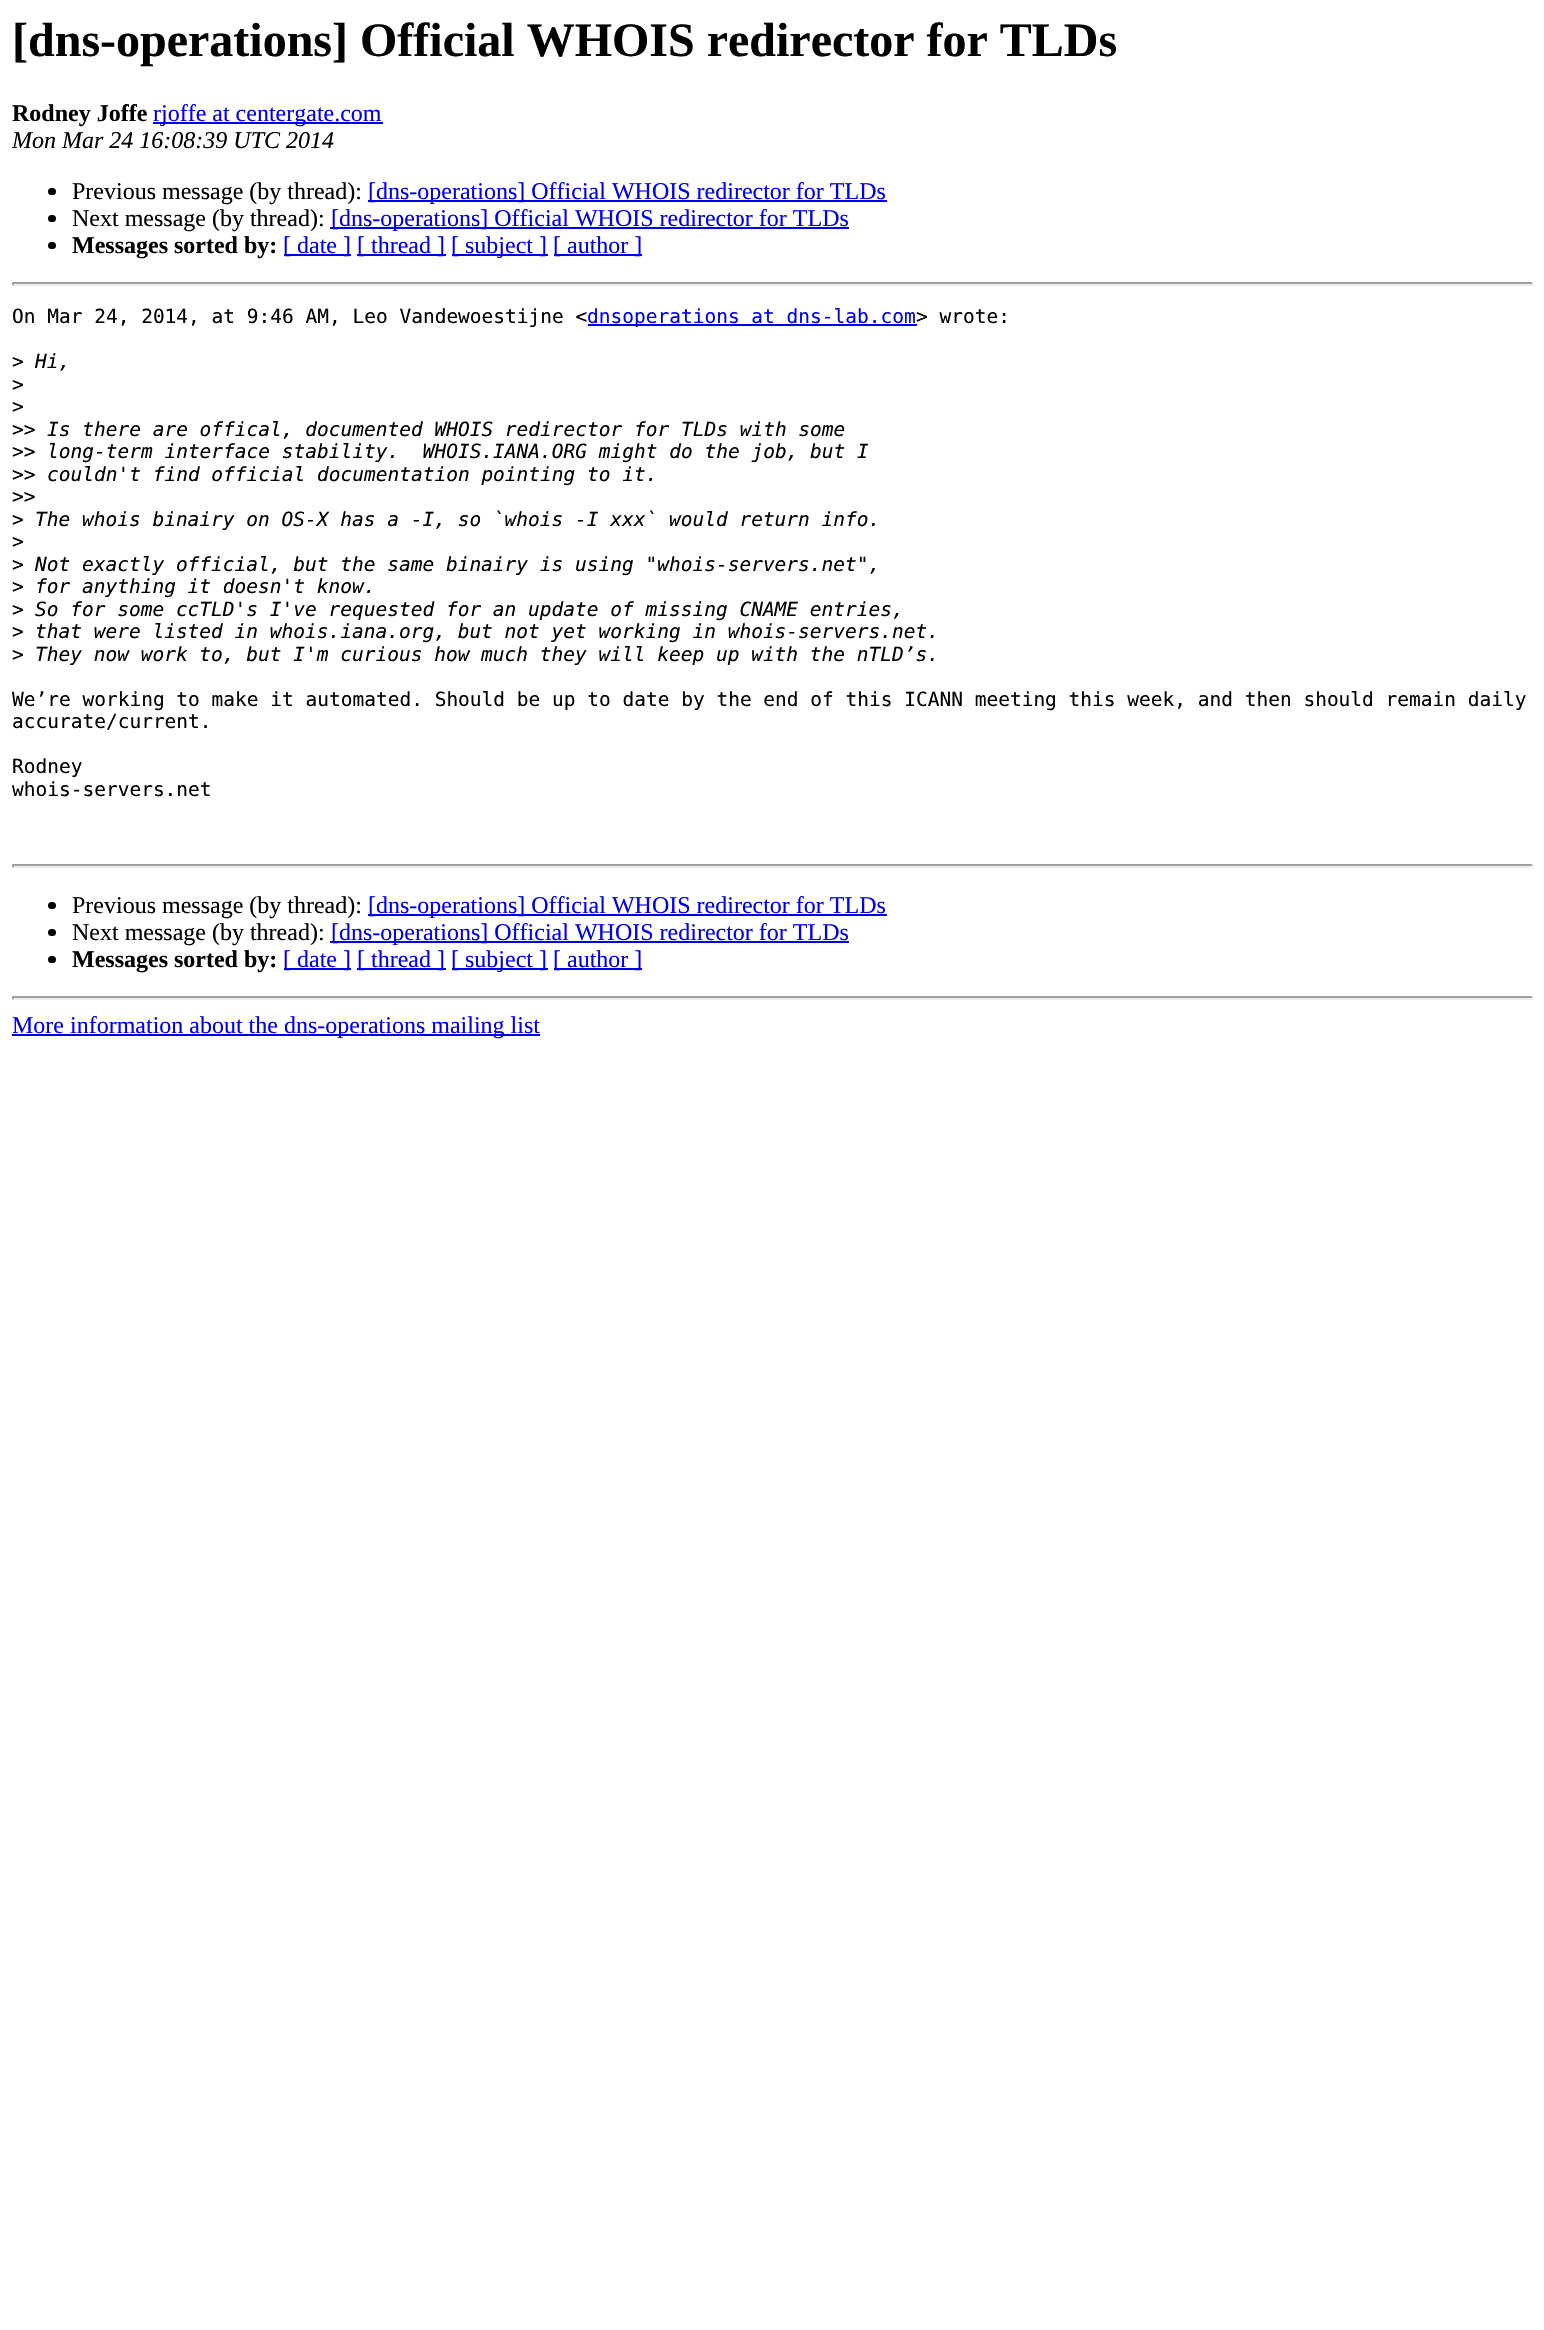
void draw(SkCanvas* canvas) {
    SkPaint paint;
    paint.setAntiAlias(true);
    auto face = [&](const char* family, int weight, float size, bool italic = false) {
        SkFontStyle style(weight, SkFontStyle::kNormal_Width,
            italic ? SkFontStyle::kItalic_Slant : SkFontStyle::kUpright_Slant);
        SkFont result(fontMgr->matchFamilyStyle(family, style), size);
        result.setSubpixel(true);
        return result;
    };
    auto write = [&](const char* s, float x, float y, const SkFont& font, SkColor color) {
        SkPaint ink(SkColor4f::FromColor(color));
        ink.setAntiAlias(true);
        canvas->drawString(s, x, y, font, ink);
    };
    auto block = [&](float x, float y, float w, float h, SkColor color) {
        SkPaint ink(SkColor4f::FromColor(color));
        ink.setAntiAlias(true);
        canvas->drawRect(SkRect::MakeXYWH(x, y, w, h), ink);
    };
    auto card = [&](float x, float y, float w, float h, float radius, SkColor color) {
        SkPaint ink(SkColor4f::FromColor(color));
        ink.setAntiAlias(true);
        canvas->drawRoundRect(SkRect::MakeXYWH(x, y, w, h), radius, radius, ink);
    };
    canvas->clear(SK_ColorWHITE);
    auto kFont1 = face("Liberation Serif", 700, 48);
    write("[dns-operations] Official WHOIS redirector for TLDs", 12, 56, kFont1, SK_ColorBLACK);
    auto kFont2 = face("Liberation Serif", 700, 24);
    write("Rodney Joffe", 12, 121, kFont2, SK_ColorBLACK);
    block(153, 122, 230, 2, SkColorSetRGB(0, 0, 238));
    auto kFont3 = face("Liberation Serif", 400, 24);
    write("rjoffe at centergate.com", 153, 121, kFont3, SkColorSetRGB(0, 0, 238));
    auto kFont4 = face("Liberation Serif", 400, 24, true);
    write("Mon Mar 24 16:08:39 UTC 2014", 12, 148, kFont4, SK_ColorBLACK);
    card(48, 188, 8, 7, 3.5f, SK_ColorBLACK);
    write("Previous message (by thread):", 72, 199, kFont3, SK_ColorBLACK);
    block(368, 200, 519, 2, SkColorSetRGB(0, 0, 238));
    write("[dns-operations] Official WHOIS redirector for TLDs", 368, 199, kFont3, SkColorSetRGB(0, 0, 238));
    card(48, 215, 8, 7, 3.5f, SK_ColorBLACK);
    write("Next message (by thread):", 72, 226, kFont3, SK_ColorBLACK);
    block(330, 227, 519, 2, SkColorSetRGB(0, 0, 238));
    write("[dns-operations] Official WHOIS redirector for TLDs", 331, 226, kFont3, SkColorSetRGB(0, 0, 238));
    card(48, 242, 8, 7, 3.5f, SK_ColorBLACK);
    write("Messages sorted by:", 72, 253, kFont2, SK_ColorBLACK);
    block(284, 254, 67, 2, SkColorSetRGB(0, 0, 238));
    write("[ date ]", 283, 253, kFont3, SkColorSetRGB(0, 0, 238));
    block(357, 254, 89, 2, SkColorSetRGB(0, 0, 238));
    write("[ thread ]", 357, 253, kFont3, SkColorSetRGB(0, 0, 238));
    block(452, 254, 96, 2, SkColorSetRGB(0, 0, 238));
    write("[ subject ]", 451, 253, kFont3, SkColorSetRGB(0, 0, 238));
    block(554, 254, 88, 2, SkColorSetRGB(0, 0, 238));
    write("[ author ]", 553, 253, kFont3, SkColorSetRGB(0, 0, 238));
    block(12, 282, 1521, 2, SkColorSetRGB(159, 159, 159));
    block(1532, 282, 2, 3, SkColorSetRGB(238, 238, 238));
    block(12, 284, 1521, 2, SkColorSetRGB(238, 238, 238));
    block(12, 282, 2, 3, SkColorSetRGB(159, 159, 159));
    auto kFont5 = face("DejaVu Sans Mono", 400, 19.5f);
    write("On Mar 24, 2014, at 9:46 AM, Leo Vandewoestijne <", 12, 323, kFont5, SK_ColorBLACK);
    block(588, 324, 329, 2, SkColorSetRGB(0, 0, 238));
    write("dnsoperations at dns-lab.com", 587, 323, kFont5, SkColorSetRGB(0, 0, 238));
    write("> wrote:", 916, 323, kFont5, SK_ColorBLACK);
    write(">", 12, 368, kFont5, SK_ColorBLACK);
    auto kFont6 = face("DejaVu Sans Mono", 400, 19.5f, true);
    write("Hi,", 35, 368, kFont6, SK_ColorBLACK);
    write(">", 12, 391, kFont5, SK_ColorBLACK);
    write(">", 12, 413, kFont5, SK_ColorBLACK);
    write(">>", 12, 436, kFont5, SK_ColorBLACK);
    write("Is there are offical, documented WHOIS redirector for TLDs with some", 47, 436, kFont6, SK_ColorBLACK);
    write(">>", 12, 458, kFont5, SK_ColorBLACK);
    write("long-term interface stability.  WHOIS.IANA.ORG might do the job, but I", 47, 458, kFont6, SK_ColorBLACK);
    write(">>", 12, 481, kFont5, SK_ColorBLACK);
    write("couldn't find official documentation pointing to it.", 47, 481, kFont6, SK_ColorBLACK);
    write(">>", 12, 503, kFont5, SK_ColorBLACK);
    write(">", 12, 526, kFont5, SK_ColorBLACK);
    write("The whois binairy on OS-X has a -I, so `whois -I xxx` would return info.", 35, 526, kFont6, SK_ColorBLACK);
    write(">", 12, 548, kFont5, SK_ColorBLACK);
    write(">", 12, 571, kFont5, SK_ColorBLACK);
    write("Not exactly official, but the same binairy is using \"whois-servers.net\",", 35, 571, kFont6, SK_ColorBLACK);
    write(">", 12, 593, kFont5, SK_ColorBLACK);
    write("for anything it doesn't know.", 35, 593, kFont6, SK_ColorBLACK);
    write(">", 12, 616, kFont5, SK_ColorBLACK);
    write("So for some ccTLD's I've requested for an update of missing CNAME entries,", 35, 616, kFont6, SK_ColorBLACK);
    write(">", 12, 638, kFont5, SK_ColorBLACK);
    write("that were listed in whois.iana.org, but not yet working in whois-servers.net.", 35, 638, kFont6, SK_ColorBLACK);
    write(">", 12, 661, kFont5, SK_ColorBLACK);
    write("They now work to, but I'm curious how much they will keep up with the nTLD’s.", 35, 661, kFont6, SK_ColorBLACK);
    write("We’re working to make it automated. Should be up to date by the end of this ICANN meeting this week, and then should remain daily", 12, 706, kFont5, SK_ColorBLACK);
    write("accurate/current.", 12, 728, kFont5, SK_ColorBLACK);
    write("Rodney", 12, 773, kFont5, SK_ColorBLACK);
    write("whois-servers.net", 12, 796, kFont5, SK_ColorBLACK);
    block(12, 864, 1521, 2, SkColorSetRGB(159, 159, 159));
    block(1532, 864, 2, 3, SkColorSetRGB(238, 238, 238));
    block(12, 866, 1521, 2, SkColorSetRGB(238, 238, 238));
    block(12, 864, 2, 3, SkColorSetRGB(159, 159, 159));
    card(48, 902, 8, 7, 3.5f, SK_ColorBLACK);
    write("Previous message (by thread):", 72, 913, kFont3, SK_ColorBLACK);
    block(368, 914, 519, 2, SkColorSetRGB(0, 0, 238));
    write("[dns-operations] Official WHOIS redirector for TLDs", 368, 913, kFont3, SkColorSetRGB(0, 0, 238));
    card(48, 929, 8, 7, 3.5f, SK_ColorBLACK);
    write("Next message (by thread):", 72, 940, kFont3, SK_ColorBLACK);
    block(330, 941, 519, 2, SkColorSetRGB(0, 0, 238));
    write("[dns-operations] Official WHOIS redirector for TLDs", 331, 940, kFont3, SkColorSetRGB(0, 0, 238));
    card(48, 956, 8, 7, 3.5f, SK_ColorBLACK);
    write("Messages sorted by:", 72, 967, kFont2, SK_ColorBLACK);
    block(284, 968, 67, 2, SkColorSetRGB(0, 0, 238));
    write("[ date ]", 283, 967, kFont3, SkColorSetRGB(0, 0, 238));
    block(357, 968, 89, 2, SkColorSetRGB(0, 0, 238));
    write("[ thread ]", 357, 967, kFont3, SkColorSetRGB(0, 0, 238));
    block(452, 968, 96, 2, SkColorSetRGB(0, 0, 238));
    write("[ subject ]", 451, 967, kFont3, SkColorSetRGB(0, 0, 238));
    block(554, 968, 88, 2, SkColorSetRGB(0, 0, 238));
    write("[ author ]", 553, 967, kFont3, SkColorSetRGB(0, 0, 238));
    block(12, 996, 1521, 2, SkColorSetRGB(159, 159, 159));
    block(1532, 996, 2, 3, SkColorSetRGB(238, 238, 238));
    block(12, 998, 1521, 2, SkColorSetRGB(238, 238, 238));
    block(12, 996, 2, 3, SkColorSetRGB(159, 159, 159));
    block(12, 1034, 528, 2, SkColorSetRGB(0, 0, 238));
    write("More information about the dns-operations mailing list", 12, 1033, kFont3, SkColorSetRGB(0, 0, 238));
}
